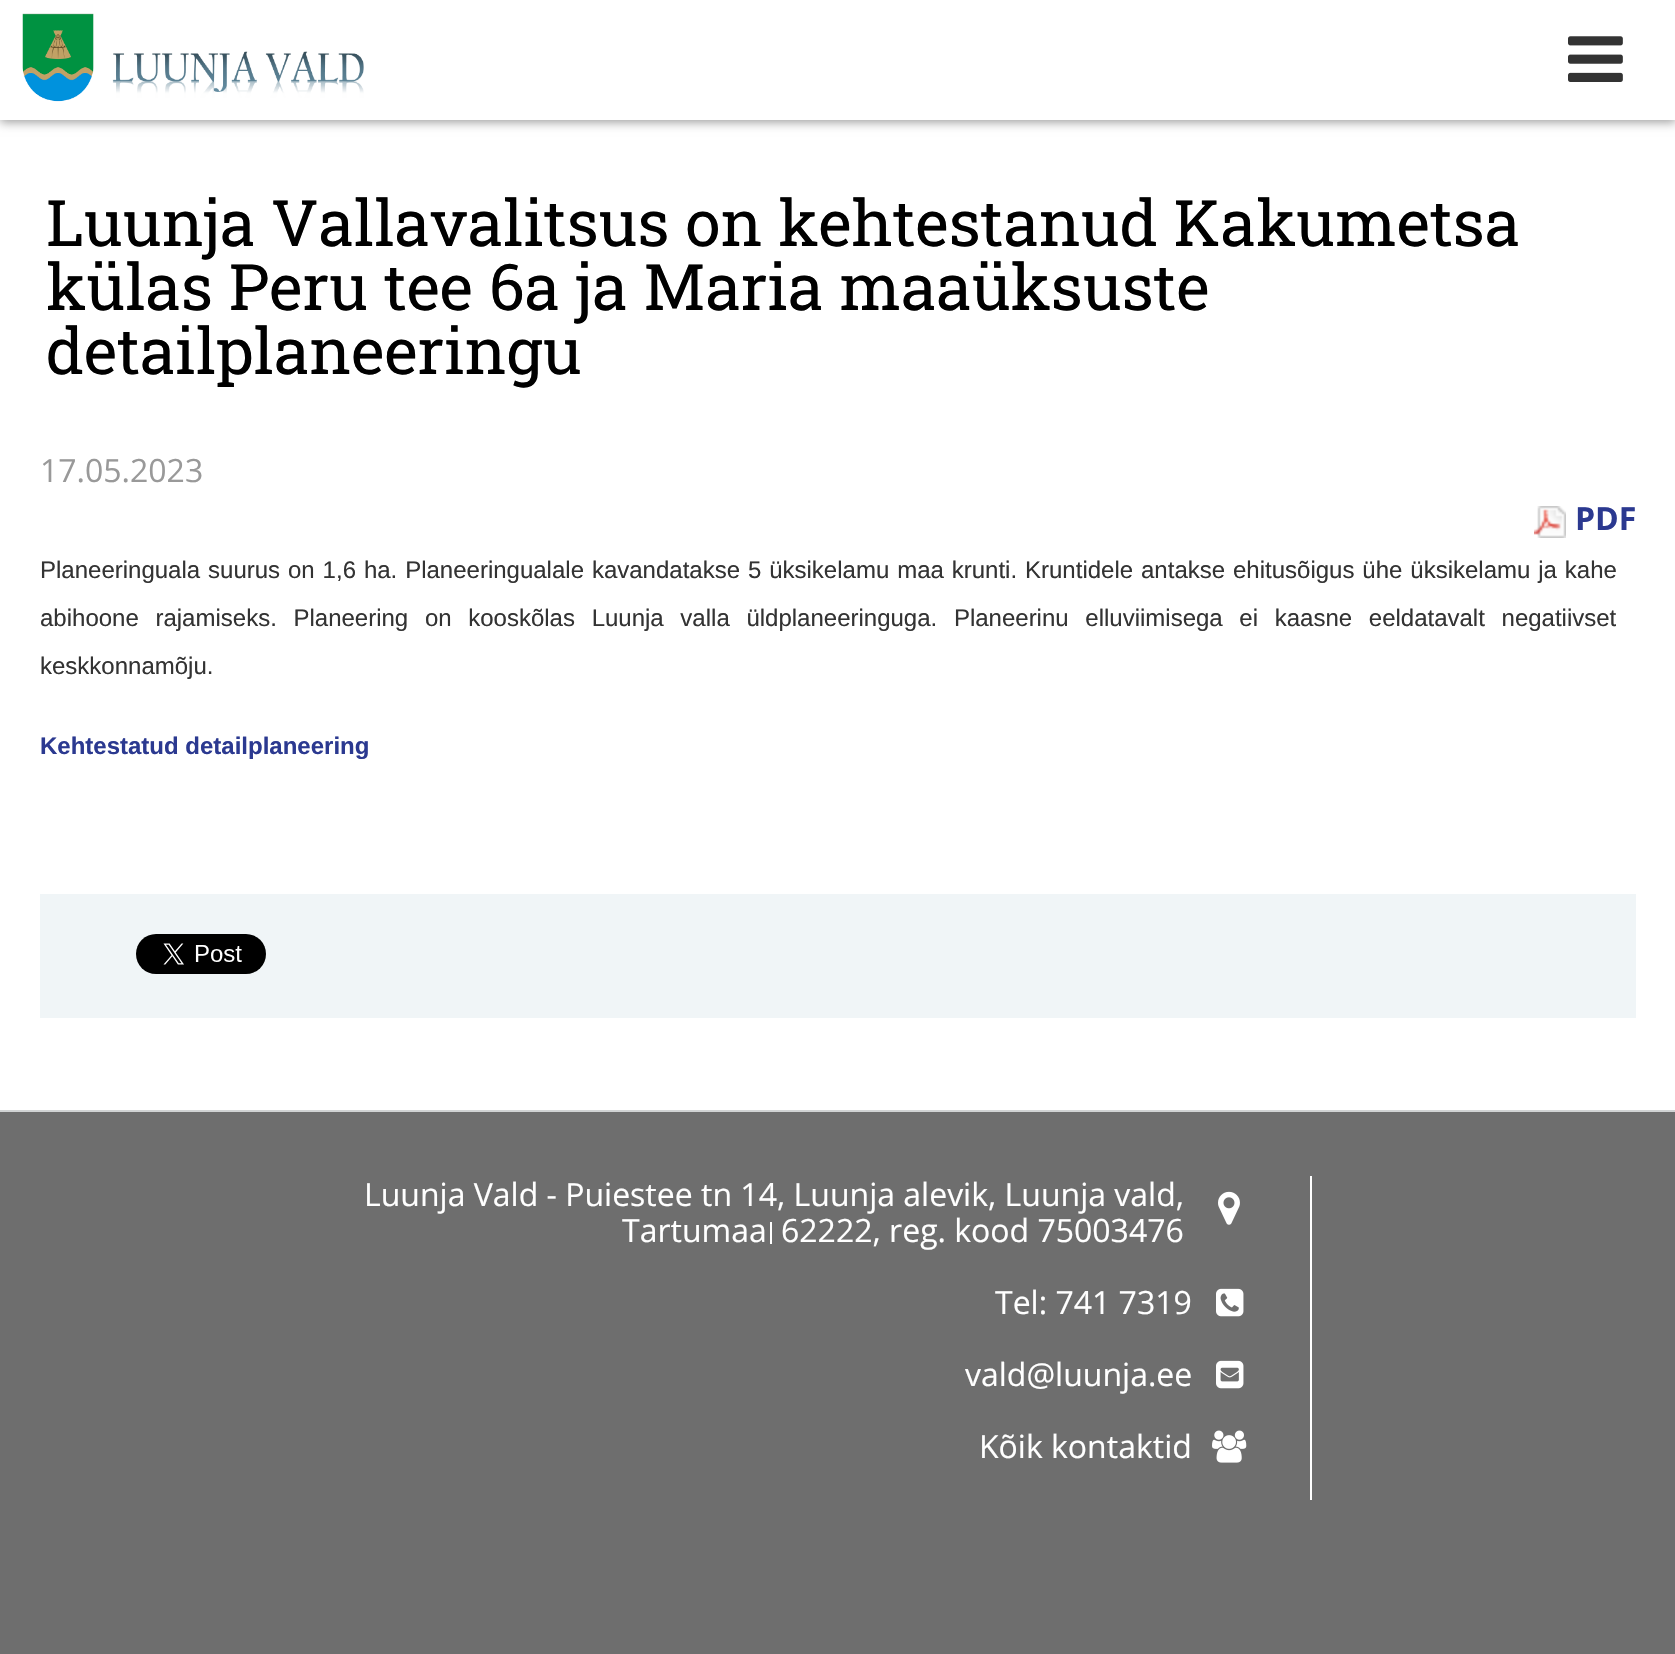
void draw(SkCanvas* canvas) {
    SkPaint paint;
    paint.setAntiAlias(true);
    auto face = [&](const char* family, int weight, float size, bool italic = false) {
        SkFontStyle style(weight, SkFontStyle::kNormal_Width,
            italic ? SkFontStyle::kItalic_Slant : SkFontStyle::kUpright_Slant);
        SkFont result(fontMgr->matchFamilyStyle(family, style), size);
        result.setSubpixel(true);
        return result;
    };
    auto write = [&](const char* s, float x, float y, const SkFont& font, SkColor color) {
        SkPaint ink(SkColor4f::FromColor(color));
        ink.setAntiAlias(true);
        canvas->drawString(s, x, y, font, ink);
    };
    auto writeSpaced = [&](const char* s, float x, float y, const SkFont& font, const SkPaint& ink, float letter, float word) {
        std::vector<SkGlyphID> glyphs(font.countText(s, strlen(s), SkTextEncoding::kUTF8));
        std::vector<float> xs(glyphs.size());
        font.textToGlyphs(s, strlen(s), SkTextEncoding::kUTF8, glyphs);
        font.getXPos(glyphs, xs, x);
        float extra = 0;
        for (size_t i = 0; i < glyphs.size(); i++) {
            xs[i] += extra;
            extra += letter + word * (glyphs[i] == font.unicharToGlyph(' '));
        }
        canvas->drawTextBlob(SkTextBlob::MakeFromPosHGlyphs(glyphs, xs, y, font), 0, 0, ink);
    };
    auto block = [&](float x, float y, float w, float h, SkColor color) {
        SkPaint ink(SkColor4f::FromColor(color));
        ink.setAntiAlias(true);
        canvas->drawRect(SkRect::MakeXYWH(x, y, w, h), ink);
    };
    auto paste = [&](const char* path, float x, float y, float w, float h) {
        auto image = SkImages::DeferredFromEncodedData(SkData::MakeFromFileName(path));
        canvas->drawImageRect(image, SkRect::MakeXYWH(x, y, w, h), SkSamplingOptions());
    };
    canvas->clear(SK_ColorWHITE);
    paint.setColor(SkColorSetARGB(102, 0, 0, 0));
    paint.setMaskFilter(SkMaskFilter::MakeBlur(kNormal_SkBlurStyle, 5));
    canvas->drawRect(SkRect::MakeXYWH(0, 2, 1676, 120), paint);
    paint.setMaskFilter(nullptr);
    block(0, 0, 1675, 120, SK_ColorWHITE);
    paste("pic1.png", 22, 13, 342, 89);
    paste("pic2.png", 1568, 36, 55, 46);
    auto kFont1 = face("Roboto Slab", 400, 64);
    write("Luunja Vallavalitsus on kehtestanud Kakumetsa", 46, 246, kFont1, SK_ColorBLACK);
    write("külas Peru tee 6a ja Maria maaüksuste", 46, 310, kFont1, SK_ColorBLACK);
    write("detailplaneeringu", 46, 374, kFont1, SK_ColorBLACK);
    auto kFont2 = face("Open Sans", 400, 32);
    write("17.05.2023", 40, 482, kFont2, SkColorSetRGB(153, 153, 153));
    paste("pic3.png", 1534, 506, 32, 32);
    auto kFont3 = face("Open Sans", 700, 32);
    write("PDF", 1575, 530, kFont3, SkColorSetRGB(43, 57, 144));
    auto kFont4 = face("Liberation Sans", 400, 24);
    paint.setColor(SkColorSetRGB(51, 51, 51));
    writeSpaced("Planeeringuala suurus on 1,6 ha. Planeeringualale kavandatakse 5 üksikelamu maa krunti. Kruntidele antakse ehitusõigus ühe üksikelamu ja kahe", 40, 578, kFont4, paint, 0, 1.25f);
    writeSpaced("abihoone rajamiseks. Planeering on kooskõlas Luunja valla üldplaneeringuga. Planeerinu elluviimisega ei kaasne eeldatavalt negatiivset", 40, 626, kFont4, paint, 0, 10);
    write("keskkonnamõju.", 40, 674, kFont4, SkColorSetRGB(51, 51, 51));
    auto kFont5 = face("Liberation Sans", 700, 24);
    write("Kehtestatud detailplaneering", 40, 754, kFont5, SkColorSetRGB(43, 57, 144));
    block(40, 894, 1596, 124, SkColorSetRGB(240, 245, 247));
    paste("pic4.png", 136, 934, 130, 40);
    block(0, 1112, 1675, 542, SkColorSetRGB(110, 110, 110));
    block(0, 1110, 1675, 2, SkColorSetRGB(209, 211, 212));
    block(1310, 1176, 2, 324, SK_ColorWHITE);
    write("Luunja Vald - Puiestee tn 14, Luunja alevik, Luunja vald,", 364, 1206, kFont2, SK_ColorWHITE);
    write("Tartumaa", 622, 1242, kFont2, SK_ColorWHITE);
    block(770, 1222, 2, 22, SK_ColorWHITE);
    write("62222, reg. kood 75003476", 781, 1242, kFont2, SK_ColorWHITE);
    paste("pic5.png", 1218, 1191, 22, 34);
    write("Tel: 741 7319", 995, 1314, kFont2, SK_ColorWHITE);
    paste("pic6.png", 1216, 1288, 28, 29);
    write("vald@luunja.ee", 965, 1386, kFont2, SK_ColorWHITE);
    paste("pic7.png", 1216, 1360, 28, 29);
    write("Kõik kontaktid", 979, 1458, kFont2, SK_ColorWHITE);
    paste("pic8.png", 1212, 1430, 35, 33);
}
